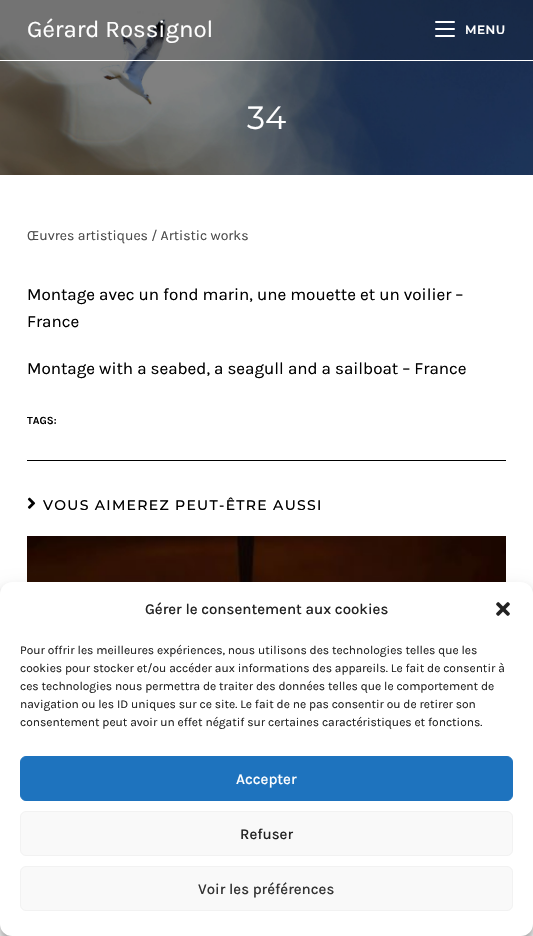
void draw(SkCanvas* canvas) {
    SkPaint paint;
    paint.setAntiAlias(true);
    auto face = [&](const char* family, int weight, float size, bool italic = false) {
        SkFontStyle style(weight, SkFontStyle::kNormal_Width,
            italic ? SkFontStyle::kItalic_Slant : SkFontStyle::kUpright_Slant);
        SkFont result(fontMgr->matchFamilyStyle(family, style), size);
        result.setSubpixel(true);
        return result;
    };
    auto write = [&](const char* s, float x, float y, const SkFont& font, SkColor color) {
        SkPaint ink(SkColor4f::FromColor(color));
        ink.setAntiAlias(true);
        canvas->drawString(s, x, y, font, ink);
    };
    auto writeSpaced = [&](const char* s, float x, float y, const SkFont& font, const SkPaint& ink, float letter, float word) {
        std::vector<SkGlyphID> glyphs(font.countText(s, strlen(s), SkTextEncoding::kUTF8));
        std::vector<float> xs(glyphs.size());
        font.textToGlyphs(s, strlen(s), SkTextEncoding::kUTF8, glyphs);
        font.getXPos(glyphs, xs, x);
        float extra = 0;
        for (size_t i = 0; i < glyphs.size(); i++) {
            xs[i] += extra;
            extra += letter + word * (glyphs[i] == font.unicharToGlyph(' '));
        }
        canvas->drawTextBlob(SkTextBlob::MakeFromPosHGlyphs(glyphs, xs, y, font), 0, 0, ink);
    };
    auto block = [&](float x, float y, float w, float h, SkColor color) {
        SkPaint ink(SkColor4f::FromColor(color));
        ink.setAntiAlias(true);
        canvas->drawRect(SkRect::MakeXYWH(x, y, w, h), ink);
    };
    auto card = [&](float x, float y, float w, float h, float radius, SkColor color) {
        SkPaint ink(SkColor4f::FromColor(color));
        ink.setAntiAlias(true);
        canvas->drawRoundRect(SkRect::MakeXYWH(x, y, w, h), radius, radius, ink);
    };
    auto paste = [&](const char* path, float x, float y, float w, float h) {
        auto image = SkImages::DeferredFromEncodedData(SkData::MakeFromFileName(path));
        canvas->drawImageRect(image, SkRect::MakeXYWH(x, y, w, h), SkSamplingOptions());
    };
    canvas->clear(SK_ColorWHITE);
    paste("pic1.png", 0, 0, 533, 175);
    block(0, 0, 533, 60, SkColorSetARGB(26, 0, 0, 0));
    block(0, 60, 533, 1, SK_ColorWHITE);
    auto kFont1 = face("Karla", 400, 24);
    write("Gérard Rossignol", 27, 37, kFont1, SK_ColorWHITE);
    card(435, 28, 20, 2, 1, SK_ColorWHITE);
    card(435, 21, 20, 2, 1, SK_ColorWHITE);
    card(435, 35, 20, 2, 1, SK_ColorWHITE);
    auto kFont2 = face("Montserrat", 600, 12);
    paint.setColor(SK_ColorWHITE);
    writeSpaced("MENU", 465, 34, kFont2, paint, 0.5f, 0);
    auto kFont3 = face("Montserrat", 400, 32);
    write("34", 247, 129, kFont3, SK_ColorWHITE);
    auto kFont4 = face("Karla", 400, 14);
    write("Œuvres artistiques / Artistic works", 27, 240, kFont4, SkColorSetRGB(74, 74, 74));
    auto kFont5 = face("Karla", 400, 17);
    write("Montage avec un fond marin, une mouette et un voilier –", 27, 300, kFont5, SK_ColorBLACK);
    write("France", 27, 327, kFont5, SK_ColorBLACK);
    write("Montage with a seabed, a seagull and a sailboat – France", 27, 374, kFont5, SK_ColorBLACK);
    auto kFont6 = face("Karla", 600, 11);
    write("TAGS:", 27, 424, kFont6, SK_ColorBLACK);
    block(27, 460, 479, 1, SK_ColorBLACK);
    paste("pic2.png", 27, 497, 9, 12);
    auto kFont7 = face("Montserrat", 500, 14);
    paint.setColor(SK_ColorBLACK);
    writeSpaced("VOUS AIMEREZ PEUT-ÊTRE AUSSI", 43, 510, kFont7, paint, 1.3f, 0);
    paste("pic3.png", 27, 536, 479, 46);
    paint.setColor(SkColorSetARGB(59, 0, 0, 0));
    paint.setMaskFilter(SkMaskFilter::MakeBlur(kNormal_SkBlurStyle, 3));
    canvas->drawRoundRect(SkRect::MakeXYWH(0, 588, 533, 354), 12, 12, paint);
    paint.setMaskFilter(nullptr);
    paint.setColor(SkColorSetARGB(48, 0, 0, 0));
    paint.setMaskFilter(SkMaskFilter::MakeBlur(kNormal_SkBlurStyle, 10));
    canvas->drawRoundRect(SkRect::MakeXYWH(0, 592, 533, 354), 12, 12, paint);
    paint.setMaskFilter(nullptr);
    card(0, 582, 533, 354, 12, SK_ColorWHITE);
    auto kFont8 = face("Karla", 500, 15);
    write("Gérer le consentement aux cookies", 145, 614, kFont8, SkColorSetRGB(34, 34, 34));
    paste("pic4.png", 496, 602, 14, 14);
    auto kFont9 = face("Karla", 400, 12);
    write("Pour offrir les meilleures expériences, nous utilisons des technologies telles que les", 20, 654, kFont9, SkColorSetRGB(34, 34, 34));
    write("cookies pour stocker et/ou accéder aux informations des appareils. Le fait de consentir à", 20, 672, kFont9, SkColorSetRGB(34, 34, 34));
    write("ces technologies nous permettra de traiter des données telles que le comportement de", 20, 690, kFont9, SkColorSetRGB(34, 34, 34));
    write("navigation ou les ID uniques sur ce site. Le fait de ne pas consentir ou de retirer son", 20, 708, kFont9, SkColorSetRGB(34, 34, 34));
    write("consentement peut avoir un effet négatif sur certaines caractéristiques et fonctions.", 20, 726, kFont9, SkColorSetRGB(34, 34, 34));
    paint.setColor(SkColorSetRGB(30, 115, 190));
    canvas->drawRoundRect(SkRect::MakeXYWH(20.5f, 756.5f, 492, 44), 5.5f, 5.5f, paint);
    paint.setStyle(SkPaint::kStroke_Style);
    paint.setStrokeWidth(1);
    canvas->drawRoundRect(SkRect::MakeXYWH(20.5f, 756.5f, 492, 44), 5.5f, 5.5f, paint);
    write("Accepter", 236, 784, kFont8, SK_ColorWHITE);
    paint.setStyle(SkPaint::kFill_Style);
    paint.setColor(SkColorSetRGB(249, 249, 249));
    canvas->drawRoundRect(SkRect::MakeXYWH(20.5f, 811.5f, 492, 44), 5.5f, 5.5f, paint);
    paint.setStyle(SkPaint::kStroke_Style);
    paint.setColor(SkColorSetRGB(242, 242, 242));
    canvas->drawRoundRect(SkRect::MakeXYWH(20.5f, 811.5f, 492, 44), 5.5f, 5.5f, paint);
    write("Refuser", 240, 839, kFont8, SkColorSetRGB(34, 34, 34));
    paint.setStyle(SkPaint::kFill_Style);
    paint.setColor(SkColorSetRGB(249, 249, 249));
    canvas->drawRoundRect(SkRect::MakeXYWH(20.5f, 866.5f, 492, 44), 5.5f, 5.5f, paint);
    paint.setStyle(SkPaint::kStroke_Style);
    paint.setColor(SkColorSetRGB(242, 242, 242));
    canvas->drawRoundRect(SkRect::MakeXYWH(20.5f, 866.5f, 492, 44), 5.5f, 5.5f, paint);
    write("Voir les préférences", 198, 894, kFont8, SkColorSetRGB(51, 51, 51));
}
